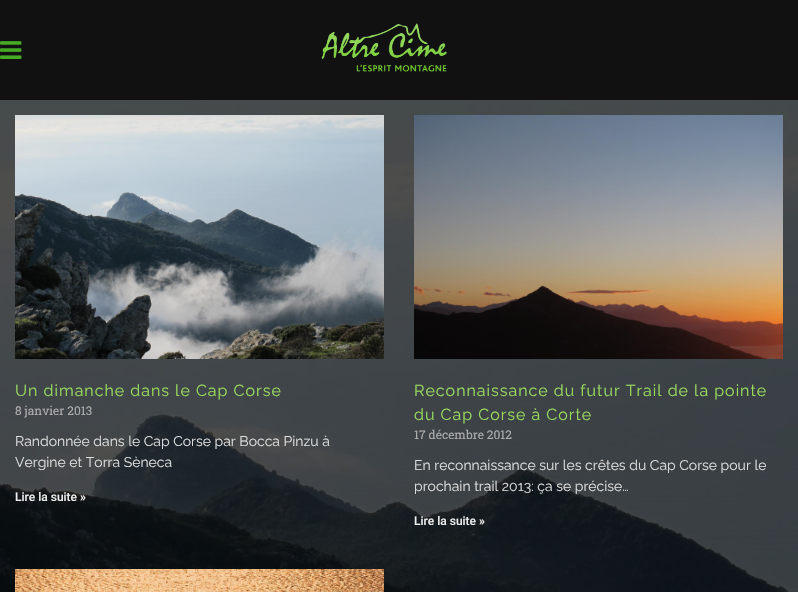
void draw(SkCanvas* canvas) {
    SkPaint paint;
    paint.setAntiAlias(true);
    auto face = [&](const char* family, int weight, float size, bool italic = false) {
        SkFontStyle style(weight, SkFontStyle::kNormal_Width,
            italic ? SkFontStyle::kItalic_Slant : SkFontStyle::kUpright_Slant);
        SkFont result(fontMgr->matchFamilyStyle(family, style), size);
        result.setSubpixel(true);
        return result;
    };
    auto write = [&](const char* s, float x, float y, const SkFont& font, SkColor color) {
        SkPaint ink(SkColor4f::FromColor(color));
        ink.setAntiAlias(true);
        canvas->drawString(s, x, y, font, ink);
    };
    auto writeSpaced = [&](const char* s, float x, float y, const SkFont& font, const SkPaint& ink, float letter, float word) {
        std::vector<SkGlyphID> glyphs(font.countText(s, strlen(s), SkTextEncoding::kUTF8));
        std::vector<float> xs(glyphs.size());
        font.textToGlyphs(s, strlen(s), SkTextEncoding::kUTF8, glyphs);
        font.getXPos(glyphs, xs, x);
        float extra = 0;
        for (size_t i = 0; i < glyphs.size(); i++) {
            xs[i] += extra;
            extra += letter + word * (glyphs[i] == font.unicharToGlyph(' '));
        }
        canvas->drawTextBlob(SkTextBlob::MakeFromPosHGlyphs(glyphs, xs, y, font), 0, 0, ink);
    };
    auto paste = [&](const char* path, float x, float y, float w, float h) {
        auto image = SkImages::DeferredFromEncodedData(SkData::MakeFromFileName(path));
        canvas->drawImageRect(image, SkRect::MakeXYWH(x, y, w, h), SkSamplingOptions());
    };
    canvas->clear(SkColorSetRGB(17, 17, 17));
    paste("pic1.png", 0, 41, 22, 18);
    paste("pic2.png", 321, 23, 126, 49);
    paste("pic3.png", 0, 100, 798, 492);
    paste("pic4.png", 15, 115, 369, 244);
    auto kFont1 = face("Raleway", 400, 16);
    paint.setColor(SkColorSetRGB(153, 218, 95));
    writeSpaced("Un dimanche dans le Cap Corse", 15, 396, kFont1, paint, 1, 0);
    auto kFont2 = face("Roboto Slab", 400, 12);
    write("8 janvier 2013", 15, 415, kFont2, SkColorSetRGB(173, 173, 173));
    auto kFont3 = face("Raleway", 400, 14);
    write("Randonnée dans le Cap Corse par Bocca Pinzu à", 15, 446, kFont3, SkColorSetRGB(222, 222, 222));
    write("Vergine et Torra Sèneca", 15, 467, kFont3, SkColorSetRGB(222, 222, 222));
    auto kFont4 = face("Roboto", 500, 12);
    write("Lire la suite »", 15, 501, kFont4, SkColorSetRGB(237, 237, 237));
    paste("pic5.png", 414, 115, 369, 244);
    writeSpaced("Reconnaissance du futur Trail de la pointe", 414, 396, kFont1, paint, 1, 0);
    writeSpaced("du Cap Corse à Corte", 414, 420, kFont1, paint, 1, 0);
    write("17 décembre 2012", 414, 439, kFont2, SkColorSetRGB(173, 173, 173));
    write("En reconnaissance sur les crêtes du Cap Corse pour le", 414, 470, kFont3, SkColorSetRGB(222, 222, 222));
    write("prochain trail 2013: ça se précise…", 414, 491, kFont3, SkColorSetRGB(222, 222, 222));
    write("Lire la suite »", 414, 525, kFont4, SkColorSetRGB(237, 237, 237));
    paste("pic6.png", 15, 569, 369, 23);
}
